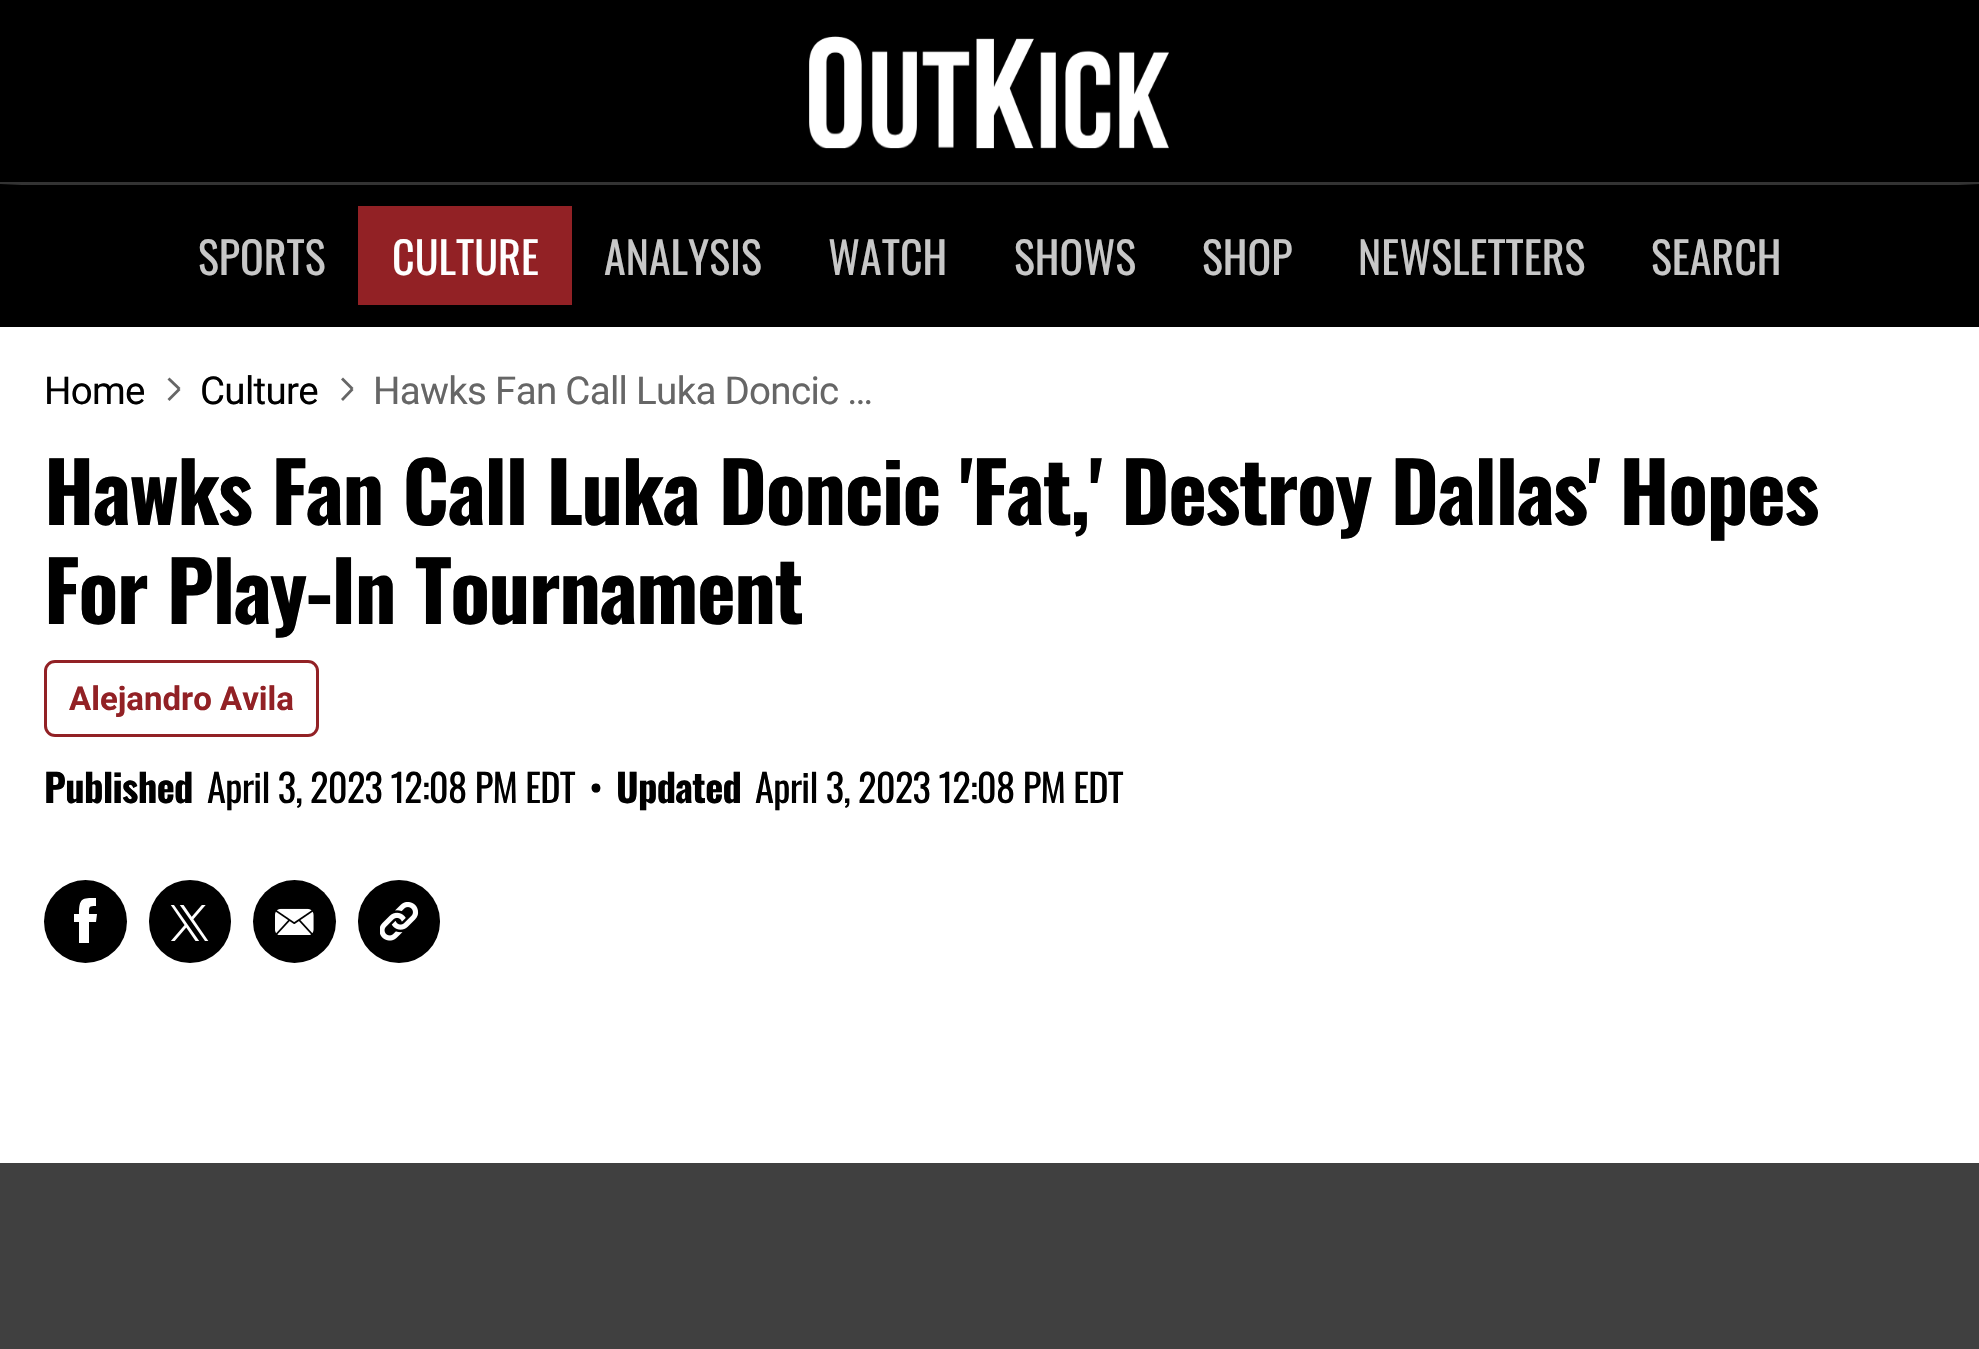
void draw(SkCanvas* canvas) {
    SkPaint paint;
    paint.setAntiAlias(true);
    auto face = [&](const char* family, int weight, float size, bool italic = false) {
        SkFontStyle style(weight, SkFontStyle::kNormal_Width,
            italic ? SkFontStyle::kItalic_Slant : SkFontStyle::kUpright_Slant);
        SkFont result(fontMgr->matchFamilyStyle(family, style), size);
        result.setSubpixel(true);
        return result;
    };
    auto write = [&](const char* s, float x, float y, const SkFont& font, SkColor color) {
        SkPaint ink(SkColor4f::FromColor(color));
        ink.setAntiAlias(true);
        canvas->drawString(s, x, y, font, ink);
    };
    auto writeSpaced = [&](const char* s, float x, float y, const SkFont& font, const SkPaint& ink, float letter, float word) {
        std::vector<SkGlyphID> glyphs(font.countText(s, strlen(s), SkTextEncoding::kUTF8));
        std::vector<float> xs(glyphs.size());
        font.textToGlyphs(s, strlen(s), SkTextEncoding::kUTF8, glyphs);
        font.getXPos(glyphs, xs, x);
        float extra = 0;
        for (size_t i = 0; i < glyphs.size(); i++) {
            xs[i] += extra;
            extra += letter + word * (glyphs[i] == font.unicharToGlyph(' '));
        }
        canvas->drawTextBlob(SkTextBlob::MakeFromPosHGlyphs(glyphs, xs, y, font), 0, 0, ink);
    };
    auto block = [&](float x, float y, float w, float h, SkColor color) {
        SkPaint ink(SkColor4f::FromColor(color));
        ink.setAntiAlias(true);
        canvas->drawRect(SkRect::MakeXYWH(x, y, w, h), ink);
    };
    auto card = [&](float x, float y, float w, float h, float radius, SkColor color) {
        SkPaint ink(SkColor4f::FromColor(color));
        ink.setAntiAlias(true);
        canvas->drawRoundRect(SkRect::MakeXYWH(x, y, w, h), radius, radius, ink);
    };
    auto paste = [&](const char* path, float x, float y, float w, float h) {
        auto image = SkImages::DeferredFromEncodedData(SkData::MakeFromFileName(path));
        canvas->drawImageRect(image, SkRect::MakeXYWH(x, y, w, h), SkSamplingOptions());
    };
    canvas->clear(SK_ColorWHITE);
    block(0, 0, 1979, 327, SK_ColorBLACK);
    paste("pic1.png", 809, 36, 360, 113);
    block(0, 182, 1979, 3, SkColorSetRGB(51, 51, 51));
    {
        const SkColor colors[] = {SK_ColorBLACK, SkColorSetARGB(0, 0, 0, 0)};
        const float stops[] = {0, 1};
        const SkPoint ends[] = {{0, 256}, {22, 256}};
        paint.setShader(SkGradientShader::MakeLinear(ends, colors, stops, 2, SkTileMode::kClamp));
        paint.setAlpha(255);
    }
    canvas->drawRect(SkRect::MakeXYWH(0, 184, 21, 1), paint);
    {
        const SkColor colors[] = {SK_ColorBLACK, SkColorSetARGB(0, 0, 0, 0)};
        const float stops[] = {0, 1};
        const SkPoint ends[] = {{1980, 256}, {1958, 256}};
        paint.setShader(SkGradientShader::MakeLinear(ends, colors, stops, 2, SkTileMode::kClamp));
        paint.setAlpha(255);
    }
    canvas->drawRect(SkRect::MakeXYWH(1959, 184, 20, 1), paint);
    auto kFont1 = face("Oswald", 400, 44);
    write("SPORTS", 198, 275, kFont1, SkColorSetRGB(199, 199, 199));
    block(358, 206, 214, 99, SkColorSetRGB(146, 33, 37));
    write("CULTURE", 392, 275, kFont1, SK_ColorWHITE);
    write("ANALYSIS", 604, 275, kFont1, SkColorSetRGB(199, 199, 199));
    write("WATCH", 828, 275, kFont1, SkColorSetRGB(199, 199, 199));
    write("SHOWS", 1014, 275, kFont1, SkColorSetRGB(199, 199, 199));
    write("SHOP", 1202, 275, kFont1, SkColorSetRGB(199, 199, 199));
    write("NEWSLETTERS", 1358, 275, kFont1, SkColorSetRGB(199, 199, 199));
    write("SEARCH", 1651, 275, kFont1, SkColorSetRGB(199, 199, 199));
    auto kFont2 = face("Roboto", 400, 38.5f);
    paint.setShader(nullptr);
    paint.setColor(SK_ColorBLACK);
    writeSpaced("Home", 44, 404, kFont2, paint, -0.7f, 0);
    paint.setColor(SkColorSetRGB(102, 102, 102));
    canvas->drawPath(SkPathBuilder().moveTo(169.5f, 377.5f).lineTo(180.5f, 388).lineTo(178.5f, 390).lineTo(167.5f, 379.5f).close().detach(), paint);
    canvas->drawPath(SkPathBuilder().moveTo(178.5f, 388).lineTo(180.5f, 390).lineTo(169.5f, 401).lineTo(167.5f, 399).close().detach(), paint);
    paint.setColor(SK_ColorBLACK);
    writeSpaced("Culture", 200, 404, kFont2, paint, -0.7f, 0);
    paint.setColor(SkColorSetRGB(102, 102, 102));
    canvas->drawPath(SkPathBuilder().moveTo(343, 377.5f).lineTo(353.5f, 388).lineTo(351.5f, 390).lineTo(341, 379.5f).close().detach(), paint);
    canvas->drawPath(SkPathBuilder().moveTo(351.5f, 388).lineTo(353.5f, 390).lineTo(343, 401).lineTo(341, 399).close().detach(), paint);
    writeSpaced("Hawks Fan Call Luka Doncic …", 373, 404, kFont2, paint, -0.7f, 0);
    auto kFont3 = face("Oswald", 700, 82.5f);
    paint.setColor(SK_ColorBLACK);
    writeSpaced("Hawks Fan Call Luka Doncic 'Fat,' Destroy Dallas' Hopes", 44, 525, kFont3, paint, -1.38f, 0);
    writeSpaced("For Play-In Tournament", 44, 624, kFont3, paint, -1.38f, 0);
    paint.setStyle(SkPaint::kStroke_Style);
    paint.setStrokeWidth(3);
    paint.setColor(SkColorSetRGB(146, 33, 37));
    canvas->drawRoundRect(SkRect::MakeXYWH(45.5f, 661.5f, 272, 74), 9.5f, 9.5f, paint);
    auto kFont4 = face("Roboto", 700, 33);
    write("Alejandro Avila", 69, 710, kFont4, SkColorSetRGB(146, 33, 37));
    auto kFont5 = face("Oswald", 700, 38.5f);
    paint.setStyle(SkPaint::kFill_Style);
    paint.setColor(SK_ColorBLACK);
    writeSpaced("Published", 44, 803, kFont5, paint, -0.7f, 0);
    auto kFont6 = face("Oswald", 400, 38.5f);
    writeSpaced("April 3, 2023 12:08 PM EDT", 207, 803, kFont6, paint, -0.7f, 0);
    writeSpaced("•", 589, 803, kFont6, paint, -0.7f, 0);
    writeSpaced("Updated", 616, 803, kFont5, paint, -0.7f, 0);
    writeSpaced("April 3, 2023 12:08 PM EDT", 755, 803, kFont6, paint, -0.7f, 0);
    canvas->drawCircle(85.5f, 921.5f, 41.5f, paint);
    paint.setColor(SK_ColorWHITE);
    canvas->drawPath(SkPathBuilder(SkPathFillType::kEvenOdd).moveTo(89, 943).lineTo(79, 943).lineTo(79, 922).lineTo(74, 922).lineTo(74, 914).lineTo(79, 914).cubicTo(79, 898, 82, 898, 96, 898).lineTo(96, 906).cubicTo(89, 906, 89, 906, 89, 914).lineTo(97, 914).lineTo(96, 922).lineTo(89, 922).close().detach(), paint);
    card(149, 880, 82, 83, 41, SK_ColorBLACK);
    paste("pic2.png", 170, 905, 39, 36);
    paint.setColor(SK_ColorBLACK);
    canvas->drawCircle(294.5f, 921.5f, 41.5f, paint);
    paste("pic3.png", 275, 908, 39, 27);
    card(358, 880, 82, 83, 41, SK_ColorBLACK);
    paste("pic4.png", 380, 902, 39, 39);
    block(0, 1163, 1979, 186, SkColorSetRGB(64, 64, 64));
}
